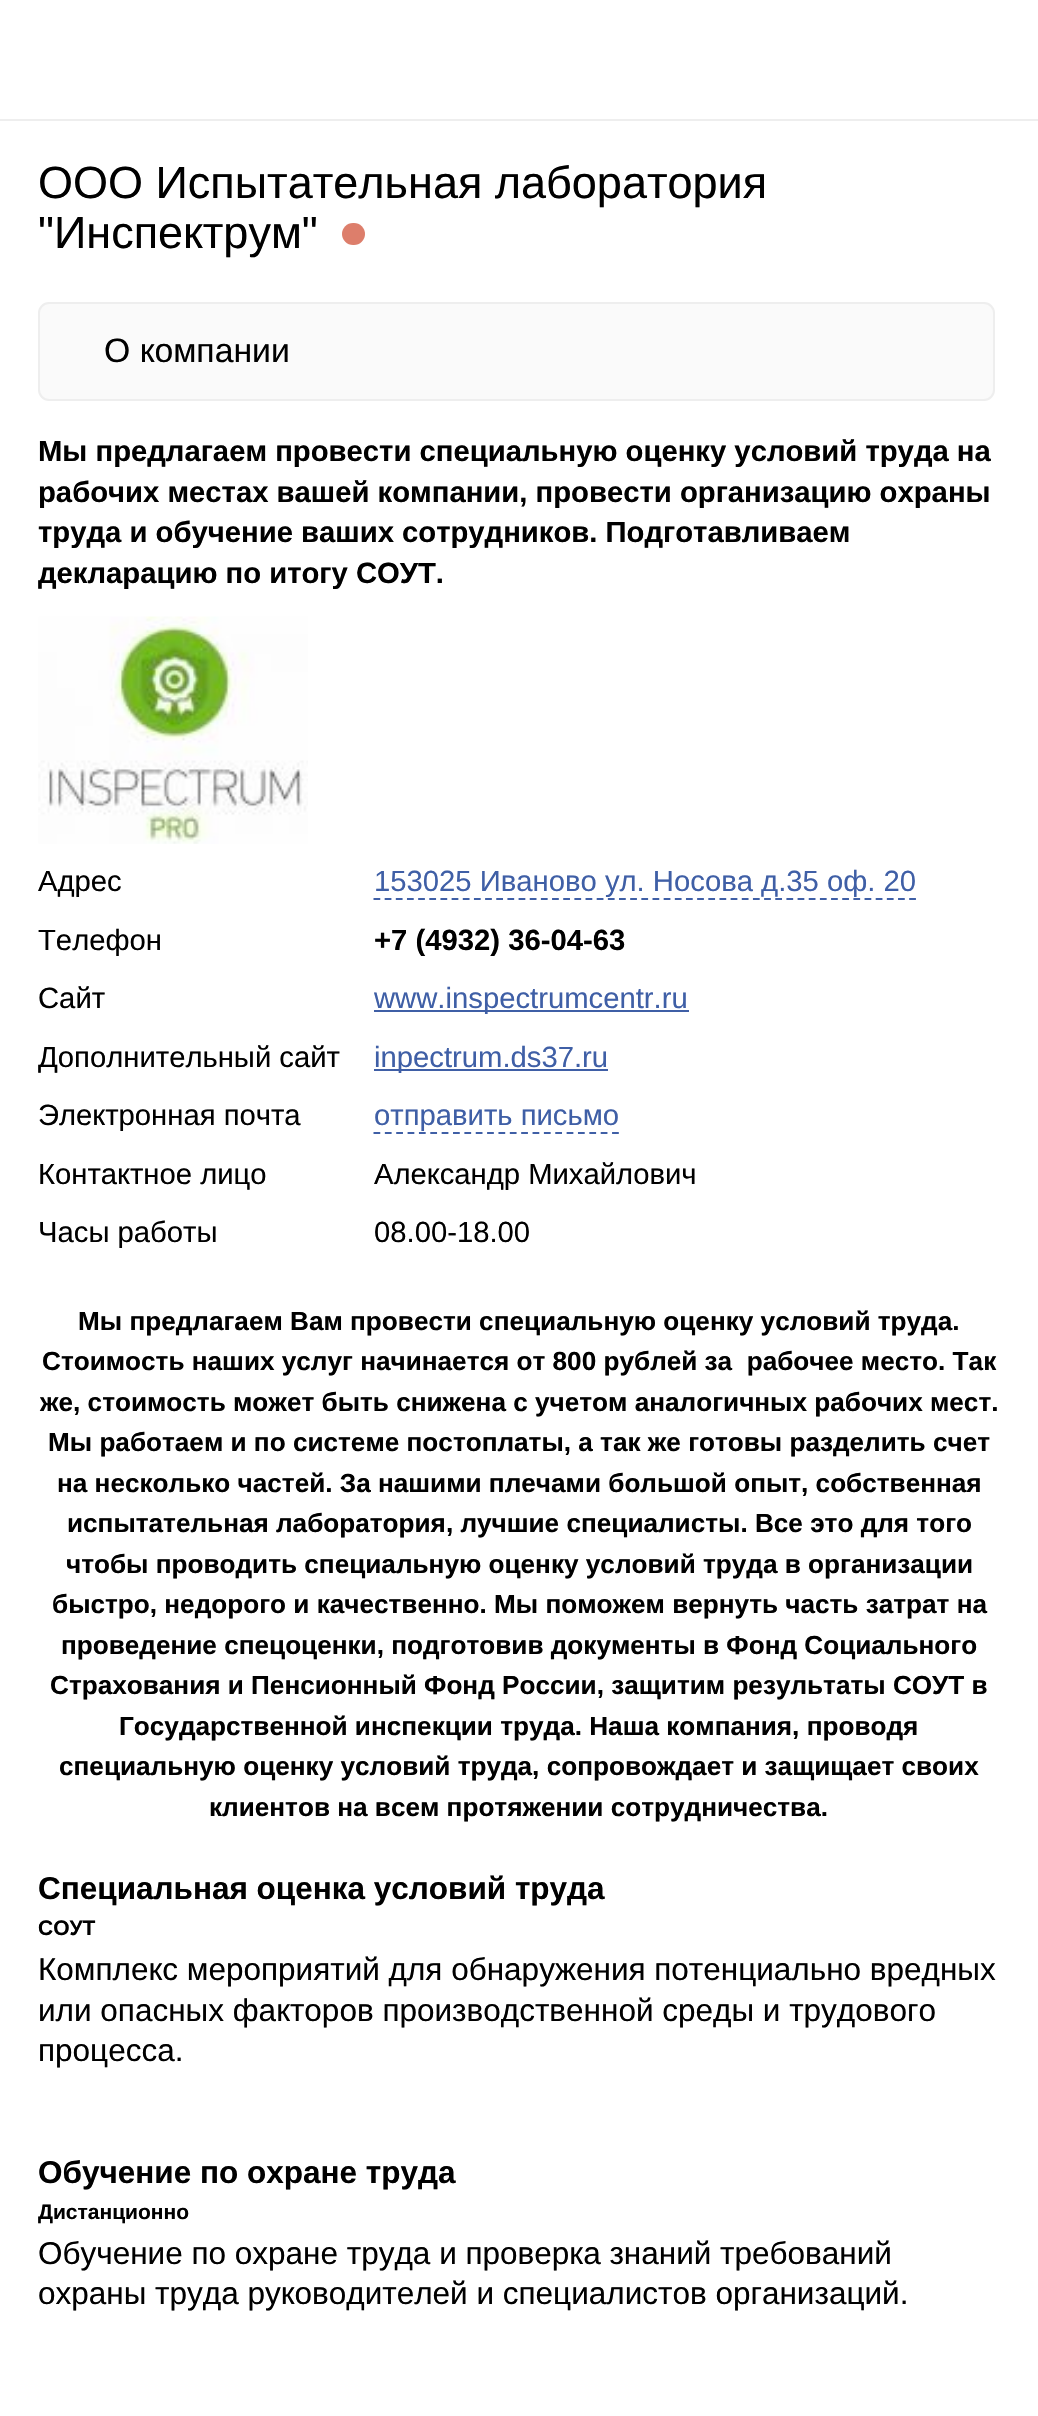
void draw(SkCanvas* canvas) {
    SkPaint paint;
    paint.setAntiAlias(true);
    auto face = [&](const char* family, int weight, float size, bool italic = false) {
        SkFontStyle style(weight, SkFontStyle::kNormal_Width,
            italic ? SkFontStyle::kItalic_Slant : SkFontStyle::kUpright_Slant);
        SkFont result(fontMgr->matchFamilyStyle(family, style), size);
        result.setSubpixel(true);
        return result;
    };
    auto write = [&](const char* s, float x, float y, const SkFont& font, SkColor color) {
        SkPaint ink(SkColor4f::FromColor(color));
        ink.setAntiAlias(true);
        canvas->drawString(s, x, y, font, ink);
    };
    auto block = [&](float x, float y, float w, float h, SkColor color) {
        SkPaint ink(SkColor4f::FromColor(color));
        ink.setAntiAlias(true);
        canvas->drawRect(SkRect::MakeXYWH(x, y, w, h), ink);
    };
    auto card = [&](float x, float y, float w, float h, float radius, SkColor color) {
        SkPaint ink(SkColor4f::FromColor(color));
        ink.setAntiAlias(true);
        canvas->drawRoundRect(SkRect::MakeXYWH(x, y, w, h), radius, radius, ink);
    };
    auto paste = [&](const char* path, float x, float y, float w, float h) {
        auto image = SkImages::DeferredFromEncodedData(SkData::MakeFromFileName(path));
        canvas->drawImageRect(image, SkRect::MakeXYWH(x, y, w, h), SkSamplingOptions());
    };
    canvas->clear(SK_ColorWHITE);
    block(0, 119, 1038, 2, SkColorSetRGB(238, 238, 238));
    auto kFont1 = face("Liberation Sans", 400, 45);
    write("ООО Испытательная лаборатория", 38, 198, kFont1, SK_ColorBLACK);
    write("\"Инспектрум\"", 38, 248, kFont1, SK_ColorBLACK);
    card(342, 223, 23, 22, 11, SkColorSetRGB(221, 126, 107));
    paint.setColor(SkColorSetRGB(250, 250, 250));
    canvas->drawRoundRect(SkRect::MakeXYWH(39, 303, 955, 97), 10, 10, paint);
    paint.setStyle(SkPaint::kStroke_Style);
    paint.setStrokeWidth(2);
    paint.setColor(SkColorSetRGB(238, 238, 238));
    canvas->drawRoundRect(SkRect::MakeXYWH(39, 303, 955, 97), 10, 10, paint);
    auto kFont2 = face("Liberation Sans", 400, 33.75f);
    write("О компании", 104, 362, kFont2, SK_ColorBLACK);
    auto kFont3 = face("Liberation Sans", 700, 29.25f);
    write("Мы предлагаем провести специальную оценку условий труда на", 38, 461, kFont3, SK_ColorBLACK);
    write("рабочих местах вашей компании, провести организацию охраны", 38, 502, kFont3, SK_ColorBLACK);
    write("труда и обучение ваших сотрудников. Подготавливаем", 38, 542, kFont3, SK_ColorBLACK);
    write("декларацию по итогу СОУТ.", 38, 583, kFont3, SK_ColorBLACK);
    paste("pic1.png", 38, 616, 270, 228);
    auto kFont4 = face("Liberation Sans", 400, 29.25f);
    write("Адрес", 38, 891, kFont4, SK_ColorBLACK);
    paint.setStrokeWidth(2.2f);
    paint.setColor(SkColorSetRGB(63, 95, 166));
    paint.setPathEffect(SkDashPathEffect::Make({{6.75f, 4.41f}}, 0));
    canvas->drawPath(SkPathBuilder().moveTo(373.5f, 899).lineTo(916, 899).detach(), paint);
    paint.setPathEffect(nullptr);
    write("153025 Иваново ул. Носова д.35 оф. 20", 374, 891, kFont4, SkColorSetRGB(63, 95, 166));
    write("Телефон", 38, 950, kFont4, SK_ColorBLACK);
    write("+7 (4932) 36-04-63", 374, 950, kFont3, SK_ColorBLACK);
    write("Сайт", 38, 1008, kFont4, SK_ColorBLACK);
    block(374, 1010, 315, 2, SkColorSetRGB(63, 95, 166));
    write("www.inspectrumcentr.ru", 374, 1008, kFont4, SkColorSetRGB(63, 95, 166));
    write("Дополнительный сайт", 38, 1067, kFont4, SK_ColorBLACK);
    block(374, 1069, 234, 2, SkColorSetRGB(63, 95, 166));
    write("inpectrum.ds37.ru", 374, 1067, kFont4, SkColorSetRGB(63, 95, 166));
    write("Электронная почта", 38, 1125, kFont4, SK_ColorBLACK);
    paint.setPathEffect(SkDashPathEffect::Make({{6.75f, 4.61f}}, 0));
    canvas->drawPath(SkPathBuilder().moveTo(373.5f, 1133).lineTo(619, 1133).detach(), paint);
    paint.setPathEffect(nullptr);
    write("отправить письмо", 374, 1125, kFont4, SkColorSetRGB(63, 95, 166));
    write("Контактное лицо", 38, 1184, kFont4, SK_ColorBLACK);
    write("Александр Михайлович", 374, 1184, kFont4, SK_ColorBLACK);
    write("Часы работы", 38, 1242, kFont4, SK_ColorBLACK);
    write("08.00-18.00", 374, 1242, kFont4, SK_ColorBLACK);
    auto kFont5 = face("Liberation Sans", 700, 26.15f);
    write("Мы предлагаем Вам провести специальную оценку условий труда.", 78, 1330, kFont5, SK_ColorBLACK);
    write("Стоимость наших услуг начинается от 800 рублей за  рабочее место. Так", 42, 1370, kFont5, SK_ColorBLACK);
    write("же, стоимость может быть снижена с учетом аналогичных рабочих мест.", 40, 1411, kFont5, SK_ColorBLACK);
    write("Мы работаем и по системе постоплаты, а так же готовы разделить счет", 48, 1451, kFont5, SK_ColorBLACK);
    write("на несколько частей. За нашими плечами большой опыт, собственная", 57, 1492, kFont5, SK_ColorBLACK);
    write("испытательная лаборатория, лучшие специалисты. Все это для того", 67, 1532, kFont5, SK_ColorBLACK);
    write("чтобы проводить специальную оценку условий труда в организации", 66, 1573, kFont5, SK_ColorBLACK);
    write("быстро, недорого и качественно. Мы поможем вернуть часть затрат на", 52, 1613, kFont5, SK_ColorBLACK);
    write("проведение спецоценки, подготовив документы в Фонд Социального", 61, 1654, kFont5, SK_ColorBLACK);
    write("Страхования и Пенсионный Фонд России, защитим результаты СОУТ в", 50, 1694, kFont5, SK_ColorBLACK);
    write("Государственной инспекции труда. Наша компания, проводя", 119, 1735, kFont5, SK_ColorBLACK);
    write("специальную оценку условий труда, сопровождает и защищает своих", 59, 1775, kFont5, SK_ColorBLACK);
    write("клиентов на всем протяжении сотрудничества.", 209, 1816, kFont5, SK_ColorBLACK);
    auto kFont6 = face("Liberation Sans", 700, 31.5f);
    write("Специальная оценка условий труда", 38, 1899, kFont6, SK_ColorBLACK);
    auto kFont7 = face("Liberation Sans", 700, 21);
    write("СОУТ", 38, 1935, kFont7, SK_ColorBLACK);
    auto kFont8 = face("Liberation Sans", 400, 31.5f);
    write("Комплекс мероприятий для обнаружения потенциально вредных", 38, 1980, kFont8, SK_ColorBLACK);
    write("или опасных факторов производственной среды и трудового", 38, 2021, kFont8, SK_ColorBLACK);
    write("процесса.", 38, 2061, kFont8, SK_ColorBLACK);
    write("Обучение по охране труда", 38, 2183, kFont6, SK_ColorBLACK);
    write("Дистанционно", 38, 2219, kFont7, SK_ColorBLACK);
    write("Обучение по охране труда и проверка знаний требований", 38, 2264, kFont8, SK_ColorBLACK);
    write("охраны труда руководителей и специалистов организаций.", 38, 2304, kFont8, SK_ColorBLACK);
}
